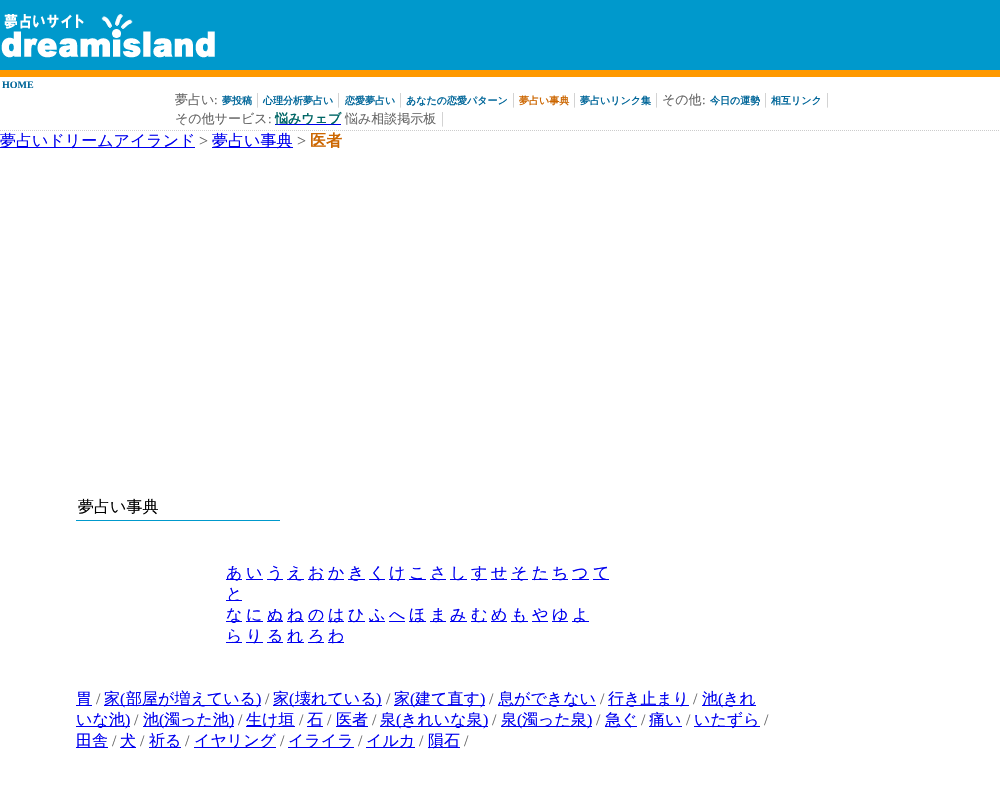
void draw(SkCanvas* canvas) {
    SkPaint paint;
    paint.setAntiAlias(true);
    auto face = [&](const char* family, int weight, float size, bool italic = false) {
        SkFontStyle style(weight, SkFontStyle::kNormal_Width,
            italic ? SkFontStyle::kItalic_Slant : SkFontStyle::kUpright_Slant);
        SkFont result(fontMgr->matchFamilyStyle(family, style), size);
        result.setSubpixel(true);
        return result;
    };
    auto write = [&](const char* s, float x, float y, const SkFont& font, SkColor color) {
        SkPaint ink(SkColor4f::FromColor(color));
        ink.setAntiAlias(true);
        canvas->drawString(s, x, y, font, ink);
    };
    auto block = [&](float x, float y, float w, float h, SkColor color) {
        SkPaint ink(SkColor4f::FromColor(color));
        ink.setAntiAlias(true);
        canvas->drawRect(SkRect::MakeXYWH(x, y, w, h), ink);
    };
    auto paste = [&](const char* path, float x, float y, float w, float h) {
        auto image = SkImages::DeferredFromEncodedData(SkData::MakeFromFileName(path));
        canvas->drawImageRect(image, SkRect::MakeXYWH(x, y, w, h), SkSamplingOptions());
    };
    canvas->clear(SK_ColorWHITE);
    block(0, 0, 1000, 70, SkColorSetRGB(0, 153, 204));
    paste("pic1.png", 1, 14, 214, 44);
    block(0, 70, 1000, 7, SkColorSetRGB(255, 153, 0));
    paint.setStyle(SkPaint::kStroke_Style);
    paint.setStrokeWidth(1);
    paint.setColor(SkColorSetRGB(204, 204, 204));
    paint.setPathEffect(SkDashPathEffect::Make({{1, 1}}, 0));
    canvas->drawPath(SkPathBuilder().moveTo(0, 130.5f).lineTo(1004, 130.5f).detach(), paint);
    paint.setPathEffect(nullptr);
    auto kFont1 = face("Liberation Serif", 700, 10);
    write("HOME", 2, 88, kFont1, SkColorSetRGB(0, 102, 153));
    auto kFont2 = face("WenQuanYi Zen Hei", 500, 13);
    write("夢占い", 175, 104, kFont2, SkColorSetRGB(102, 102, 102));
    auto kFont3 = face("Liberation Serif", 400, 13);
    write(":", 214, 104, kFont3, SkColorSetRGB(102, 102, 102));
    auto kFont4 = face("WenQuanYi Zen Hei", 700, 10);
    write("夢投稿", 222, 104, kFont4, SkColorSetRGB(0, 102, 153));
    auto kFont5 = face("Liberation Serif", 400, 16);
    write("|", 256, 104, kFont5, SkColorSetRGB(204, 204, 204));
    write("心理分析夢占い", 263, 104, kFont4, SkColorSetRGB(0, 102, 153));
    write("|", 337, 104, kFont5, SkColorSetRGB(204, 204, 204));
    write("恋愛夢占い", 345, 104, kFont4, SkColorSetRGB(0, 102, 153));
    write("|", 399, 104, kFont5, SkColorSetRGB(204, 204, 204));
    write("あなたの恋愛パターン", 406, 104, kFont4, SkColorSetRGB(0, 102, 153));
    write("|", 512, 104, kFont5, SkColorSetRGB(204, 204, 204));
    write("夢占い事典", 519, 104, kFont4, SkColorSetRGB(204, 102, 0));
    write("|", 573, 104, kFont5, SkColorSetRGB(204, 204, 204));
    write("夢占いリンク集", 580, 104, kFont4, SkColorSetRGB(0, 102, 153));
    write("|", 655, 104, kFont5, SkColorSetRGB(204, 204, 204));
    write("その他", 662, 104, kFont2, SkColorSetRGB(102, 102, 102));
    write(":", 702, 104, kFont3, SkColorSetRGB(102, 102, 102));
    write("今日の運勢", 710, 104, kFont4, SkColorSetRGB(0, 102, 153));
    write("|", 764, 104, kFont5, SkColorSetRGB(204, 204, 204));
    write("相互リンク", 771, 104, kFont4, SkColorSetRGB(0, 102, 153));
    write("|", 826, 104, kFont5, SkColorSetRGB(204, 204, 204));
    write("その他サービス", 175, 123, kFont2, SkColorSetRGB(102, 102, 102));
    write(":", 268, 123, kFont3, SkColorSetRGB(102, 102, 102));
    block(275, 124, 66, 1, SkColorSetRGB(0, 0, 238));
    auto kFont6 = face("WenQuanYi Zen Hei", 700, 13);
    write("悩みウェブ", 275, 123, kFont6, SkColorSetRGB(0, 102, 102));
    write("悩み相談掲示板", 345, 123, kFont2, SkColorSetRGB(102, 102, 102));
    write("|", 441, 123, kFont5, SkColorSetRGB(204, 204, 204));
    block(0, 147, 195, 1, SkColorSetRGB(0, 0, 238));
    auto kFont7 = face("WenQuanYi Zen Hei", 500, 16);
    write("夢占いドリームアイランド", 0, 146, kFont7, SkColorSetRGB(0, 0, 238));
    write(">", 199, 146, kFont5, SkColorSetRGB(102, 102, 102));
    block(212, 147, 81, 1, SkColorSetRGB(0, 0, 238));
    write("夢占い事典", 212, 146, kFont7, SkColorSetRGB(0, 0, 238));
    write(">", 297, 146, kFont5, SkColorSetRGB(102, 102, 102));
    auto kFont8 = face("WenQuanYi Zen Hei", 700, 16);
    write("医者", 310, 146, kFont8, SkColorSetRGB(204, 102, 0));
    block(76, 520, 204, 1, SkColorSetRGB(0, 153, 204));
    write("夢占い事典", 78, 512, kFont7, SK_ColorBLACK);
    block(226, 579, 16, 1, SkColorSetRGB(0, 0, 238));
    write("あ", 226, 578, kFont7, SkColorSetRGB(0, 0, 238));
    write("い", 246, 578, kFont7, SkColorSetRGB(0, 0, 238));
    block(246, 579, 17, 1, SkColorSetRGB(0, 0, 238));
    block(267, 579, 16, 1, SkColorSetRGB(0, 0, 238));
    write("う", 267, 578, kFont7, SkColorSetRGB(0, 0, 238));
    block(287, 579, 17, 1, SkColorSetRGB(0, 0, 238));
    write("え", 287, 578, kFont7, SkColorSetRGB(0, 0, 238));
    block(308, 579, 16, 1, SkColorSetRGB(0, 0, 238));
    write("お", 308, 578, kFont7, SkColorSetRGB(0, 0, 238));
    block(328, 579, 16, 1, SkColorSetRGB(0, 0, 238));
    write("か", 328, 578, kFont7, SkColorSetRGB(0, 0, 238));
    block(348, 579, 17, 1, SkColorSetRGB(0, 0, 238));
    write("き", 348, 578, kFont7, SkColorSetRGB(0, 0, 238));
    block(369, 579, 16, 1, SkColorSetRGB(0, 0, 238));
    write("く", 369, 578, kFont7, SkColorSetRGB(0, 0, 238));
    block(389, 579, 16, 1, SkColorSetRGB(0, 0, 238));
    write("け", 389, 578, kFont7, SkColorSetRGB(0, 0, 238));
    block(409, 579, 17, 1, SkColorSetRGB(0, 0, 238));
    write("こ", 409, 578, kFont7, SkColorSetRGB(0, 0, 238));
    block(430, 579, 16, 1, SkColorSetRGB(0, 0, 238));
    write("さ", 430, 578, kFont7, SkColorSetRGB(0, 0, 238));
    block(450, 579, 17, 1, SkColorSetRGB(0, 0, 238));
    write("し", 450, 578, kFont7, SkColorSetRGB(0, 0, 238));
    block(471, 579, 16, 1, SkColorSetRGB(0, 0, 238));
    write("す", 471, 578, kFont7, SkColorSetRGB(0, 0, 238));
    block(491, 579, 16, 1, SkColorSetRGB(0, 0, 238));
    write("せ", 491, 578, kFont7, SkColorSetRGB(0, 0, 238));
    block(511, 579, 17, 1, SkColorSetRGB(0, 0, 238));
    write("そ", 511, 578, kFont7, SkColorSetRGB(0, 0, 238));
    block(532, 579, 16, 1, SkColorSetRGB(0, 0, 238));
    write("た", 532, 578, kFont7, SkColorSetRGB(0, 0, 238));
    block(552, 579, 16, 1, SkColorSetRGB(0, 0, 238));
    write("ち", 552, 578, kFont7, SkColorSetRGB(0, 0, 238));
    write("つ", 572, 578, kFont7, SkColorSetRGB(0, 0, 238));
    block(572, 579, 17, 1, SkColorSetRGB(0, 0, 238));
    block(593, 579, 16, 1, SkColorSetRGB(0, 0, 238));
    write("て", 593, 578, kFont7, SkColorSetRGB(0, 0, 238));
    block(226, 600, 16, 1, SkColorSetRGB(0, 0, 238));
    write("と", 226, 599, kFont7, SkColorSetRGB(0, 0, 238));
    block(226, 621, 16, 1, SkColorSetRGB(0, 0, 238));
    write("な", 226, 620, kFont7, SkColorSetRGB(0, 0, 238));
    block(246, 621, 17, 1, SkColorSetRGB(0, 0, 238));
    write("に", 246, 620, kFont7, SkColorSetRGB(0, 0, 238));
    block(267, 621, 16, 1, SkColorSetRGB(0, 0, 238));
    write("ぬ", 267, 620, kFont7, SkColorSetRGB(0, 0, 238));
    block(287, 621, 17, 1, SkColorSetRGB(0, 0, 238));
    write("ね", 287, 620, kFont7, SkColorSetRGB(0, 0, 238));
    block(308, 621, 16, 1, SkColorSetRGB(0, 0, 238));
    write("の", 308, 620, kFont7, SkColorSetRGB(0, 0, 238));
    block(328, 621, 16, 1, SkColorSetRGB(0, 0, 238));
    write("は", 328, 620, kFont7, SkColorSetRGB(0, 0, 238));
    block(348, 621, 17, 1, SkColorSetRGB(0, 0, 238));
    write("ひ", 348, 620, kFont7, SkColorSetRGB(0, 0, 238));
    block(369, 621, 16, 1, SkColorSetRGB(0, 0, 238));
    write("ふ", 369, 620, kFont7, SkColorSetRGB(0, 0, 238));
    write("へ", 389, 620, kFont7, SkColorSetRGB(0, 0, 238));
    block(389, 621, 16, 1, SkColorSetRGB(0, 0, 238));
    block(409, 621, 17, 1, SkColorSetRGB(0, 0, 238));
    write("ほ", 409, 620, kFont7, SkColorSetRGB(0, 0, 238));
    block(430, 621, 16, 1, SkColorSetRGB(0, 0, 238));
    write("ま", 430, 620, kFont7, SkColorSetRGB(0, 0, 238));
    block(450, 621, 17, 1, SkColorSetRGB(0, 0, 238));
    write("み", 450, 620, kFont7, SkColorSetRGB(0, 0, 238));
    block(471, 621, 16, 1, SkColorSetRGB(0, 0, 238));
    write("む", 471, 620, kFont7, SkColorSetRGB(0, 0, 238));
    block(491, 621, 16, 1, SkColorSetRGB(0, 0, 238));
    write("め", 491, 620, kFont7, SkColorSetRGB(0, 0, 238));
    block(511, 621, 17, 1, SkColorSetRGB(0, 0, 238));
    write("も", 511, 620, kFont7, SkColorSetRGB(0, 0, 238));
    block(532, 621, 16, 1, SkColorSetRGB(0, 0, 238));
    write("や", 532, 620, kFont7, SkColorSetRGB(0, 0, 238));
    block(552, 621, 16, 1, SkColorSetRGB(0, 0, 238));
    write("ゆ", 552, 620, kFont7, SkColorSetRGB(0, 0, 238));
    block(572, 621, 17, 1, SkColorSetRGB(0, 0, 238));
    write("よ", 572, 620, kFont7, SkColorSetRGB(0, 0, 238));
    block(226, 642, 16, 1, SkColorSetRGB(0, 0, 238));
    write("ら", 226, 641, kFont7, SkColorSetRGB(0, 0, 238));
    block(246, 642, 17, 1, SkColorSetRGB(0, 0, 238));
    write("り", 246, 641, kFont7, SkColorSetRGB(0, 0, 238));
    block(267, 642, 16, 1, SkColorSetRGB(0, 0, 238));
    write("る", 267, 641, kFont7, SkColorSetRGB(0, 0, 238));
    block(287, 642, 17, 1, SkColorSetRGB(0, 0, 238));
    write("れ", 287, 641, kFont7, SkColorSetRGB(0, 0, 238));
    block(308, 642, 16, 1, SkColorSetRGB(0, 0, 238));
    write("ろ", 308, 641, kFont7, SkColorSetRGB(0, 0, 238));
    block(328, 642, 16, 1, SkColorSetRGB(0, 0, 238));
    write("わ", 328, 641, kFont7, SkColorSetRGB(0, 0, 238));
    block(76, 705, 16, 1, SkColorSetRGB(0, 0, 238));
    write("胃", 76, 704, kFont7, SkColorSetRGB(0, 0, 238));
    write("/", 96, 704, kFont5, SkColorSetRGB(102, 102, 102));
    block(104, 705, 157, 1, SkColorSetRGB(0, 0, 238));
    write("家", 104, 704, kFont7, SkColorSetRGB(0, 0, 238));
    write("(", 120, 704, kFont5, SkColorSetRGB(0, 0, 238));
    write("部屋が増えている", 126, 704, kFont7, SkColorSetRGB(0, 0, 238));
    write(")", 256, 704, kFont5, SkColorSetRGB(0, 0, 238));
    write("/", 265, 704, kFont5, SkColorSetRGB(102, 102, 102));
    block(273, 705, 109, 1, SkColorSetRGB(0, 0, 238));
    write("家", 273, 704, kFont7, SkColorSetRGB(0, 0, 238));
    write("(", 289, 704, kFont5, SkColorSetRGB(0, 0, 238));
    write("壊れている", 295, 704, kFont7, SkColorSetRGB(0, 0, 238));
    write(")", 376, 704, kFont5, SkColorSetRGB(0, 0, 238));
    write("/", 386, 704, kFont5, SkColorSetRGB(102, 102, 102));
    block(394, 705, 91, 1, SkColorSetRGB(0, 0, 238));
    write("家", 394, 704, kFont7, SkColorSetRGB(0, 0, 238));
    write("(", 410, 704, kFont5, SkColorSetRGB(0, 0, 238));
    write("建て直す", 415, 704, kFont7, SkColorSetRGB(0, 0, 238));
    write(")", 480, 704, kFont5, SkColorSetRGB(0, 0, 238));
    write("/", 489, 704, kFont5, SkColorSetRGB(102, 102, 102));
    block(498, 705, 98, 1, SkColorSetRGB(0, 0, 238));
    write("息ができない", 498, 704, kFont7, SkColorSetRGB(0, 0, 238));
    write("/", 600, 704, kFont5, SkColorSetRGB(102, 102, 102));
    block(608, 705, 81, 1, SkColorSetRGB(0, 0, 238));
    write("行き止まり", 608, 704, kFont7, SkColorSetRGB(0, 0, 238));
    write("/", 693, 704, kFont5, SkColorSetRGB(102, 102, 102));
    block(702, 705, 54, 1, SkColorSetRGB(0, 0, 238));
    write("池", 702, 704, kFont7, SkColorSetRGB(0, 0, 238));
    write("(", 718, 704, kFont5, SkColorSetRGB(0, 0, 238));
    write("きれ", 723, 704, kFont7, SkColorSetRGB(0, 0, 238));
    block(76, 726, 54, 1, SkColorSetRGB(0, 0, 238));
    write("いな池", 76, 725, kFont7, SkColorSetRGB(0, 0, 238));
    write(")", 125, 725, kFont5, SkColorSetRGB(0, 0, 238));
    write("/", 134, 725, kFont5, SkColorSetRGB(102, 102, 102));
    block(143, 726, 91, 1, SkColorSetRGB(0, 0, 238));
    write("池", 143, 725, kFont7, SkColorSetRGB(0, 0, 238));
    write("(", 159, 725, kFont5, SkColorSetRGB(0, 0, 238));
    write("濁った池", 164, 725, kFont7, SkColorSetRGB(0, 0, 238));
    write(")", 229, 725, kFont5, SkColorSetRGB(0, 0, 238));
    write("/", 238, 725, kFont5, SkColorSetRGB(102, 102, 102));
    block(246, 726, 49, 1, SkColorSetRGB(0, 0, 238));
    write("生け垣", 246, 725, kFont7, SkColorSetRGB(0, 0, 238));
    write("/", 299, 725, kFont5, SkColorSetRGB(102, 102, 102));
    block(307, 726, 16, 1, SkColorSetRGB(0, 0, 238));
    write("石", 307, 725, kFont7, SkColorSetRGB(0, 0, 238));
    write("/", 327, 725, kFont5, SkColorSetRGB(102, 102, 102));
    block(336, 726, 32, 1, SkColorSetRGB(0, 0, 238));
    write("医者", 336, 725, kFont7, SkColorSetRGB(0, 0, 238));
    write("/", 372, 725, kFont5, SkColorSetRGB(102, 102, 102));
    block(380, 726, 108, 1, SkColorSetRGB(0, 0, 238));
    write("泉", 380, 725, kFont7, SkColorSetRGB(0, 0, 238));
    write("(", 396, 725, kFont5, SkColorSetRGB(0, 0, 238));
    write("きれいな泉", 401, 725, kFont7, SkColorSetRGB(0, 0, 238));
    write(")", 483, 725, kFont5, SkColorSetRGB(0, 0, 238));
    write("/", 492, 725, kFont5, SkColorSetRGB(102, 102, 102));
    block(501, 726, 91, 1, SkColorSetRGB(0, 0, 238));
    write("泉", 501, 725, kFont7, SkColorSetRGB(0, 0, 238));
    write("(", 517, 725, kFont5, SkColorSetRGB(0, 0, 238));
    write("濁った泉", 522, 725, kFont7, SkColorSetRGB(0, 0, 238));
    write(")", 587, 725, kFont5, SkColorSetRGB(0, 0, 238));
    write("/", 596, 725, kFont5, SkColorSetRGB(102, 102, 102));
    block(605, 726, 32, 1, SkColorSetRGB(0, 0, 238));
    write("急ぐ", 605, 725, kFont7, SkColorSetRGB(0, 0, 238));
    write("/", 641, 725, kFont5, SkColorSetRGB(102, 102, 102));
    block(649, 726, 33, 1, SkColorSetRGB(0, 0, 238));
    write("痛い", 649, 725, kFont7, SkColorSetRGB(0, 0, 238));
    write("/", 686, 725, kFont5, SkColorSetRGB(102, 102, 102));
    block(694, 726, 66, 1, SkColorSetRGB(0, 0, 238));
    write("いたずら", 694, 725, kFont7, SkColorSetRGB(0, 0, 238));
    write("/", 764, 725, kFont5, SkColorSetRGB(102, 102, 102));
    block(76, 747, 32, 1, SkColorSetRGB(0, 0, 238));
    write("田舎", 76, 746, kFont7, SkColorSetRGB(0, 0, 238));
    write("/", 112, 746, kFont5, SkColorSetRGB(102, 102, 102));
    block(120, 747, 16, 1, SkColorSetRGB(0, 0, 238));
    write("犬", 120, 746, kFont7, SkColorSetRGB(0, 0, 238));
    write("/", 140, 746, kFont5, SkColorSetRGB(102, 102, 102));
    block(149, 747, 32, 1, SkColorSetRGB(0, 0, 238));
    write("祈る", 149, 746, kFont7, SkColorSetRGB(0, 0, 238));
    write("/", 185, 746, kFont5, SkColorSetRGB(102, 102, 102));
    block(194, 747, 82, 1, SkColorSetRGB(0, 0, 238));
    write("イヤリング", 194, 746, kFont7, SkColorSetRGB(0, 0, 238));
    write("/", 280, 746, kFont5, SkColorSetRGB(102, 102, 102));
    block(288, 747, 66, 1, SkColorSetRGB(0, 0, 238));
    write("イライラ", 288, 746, kFont7, SkColorSetRGB(0, 0, 238));
    write("/", 358, 746, kFont5, SkColorSetRGB(102, 102, 102));
    block(366, 747, 49, 1, SkColorSetRGB(0, 0, 238));
    write("イルカ", 366, 746, kFont7, SkColorSetRGB(0, 0, 238));
    write("/", 419, 746, kFont5, SkColorSetRGB(102, 102, 102));
    block(428, 747, 32, 1, SkColorSetRGB(0, 0, 238));
    write("隕石", 428, 746, kFont7, SkColorSetRGB(0, 0, 238));
    write("/", 464, 746, kFont5, SkColorSetRGB(102, 102, 102));
}
